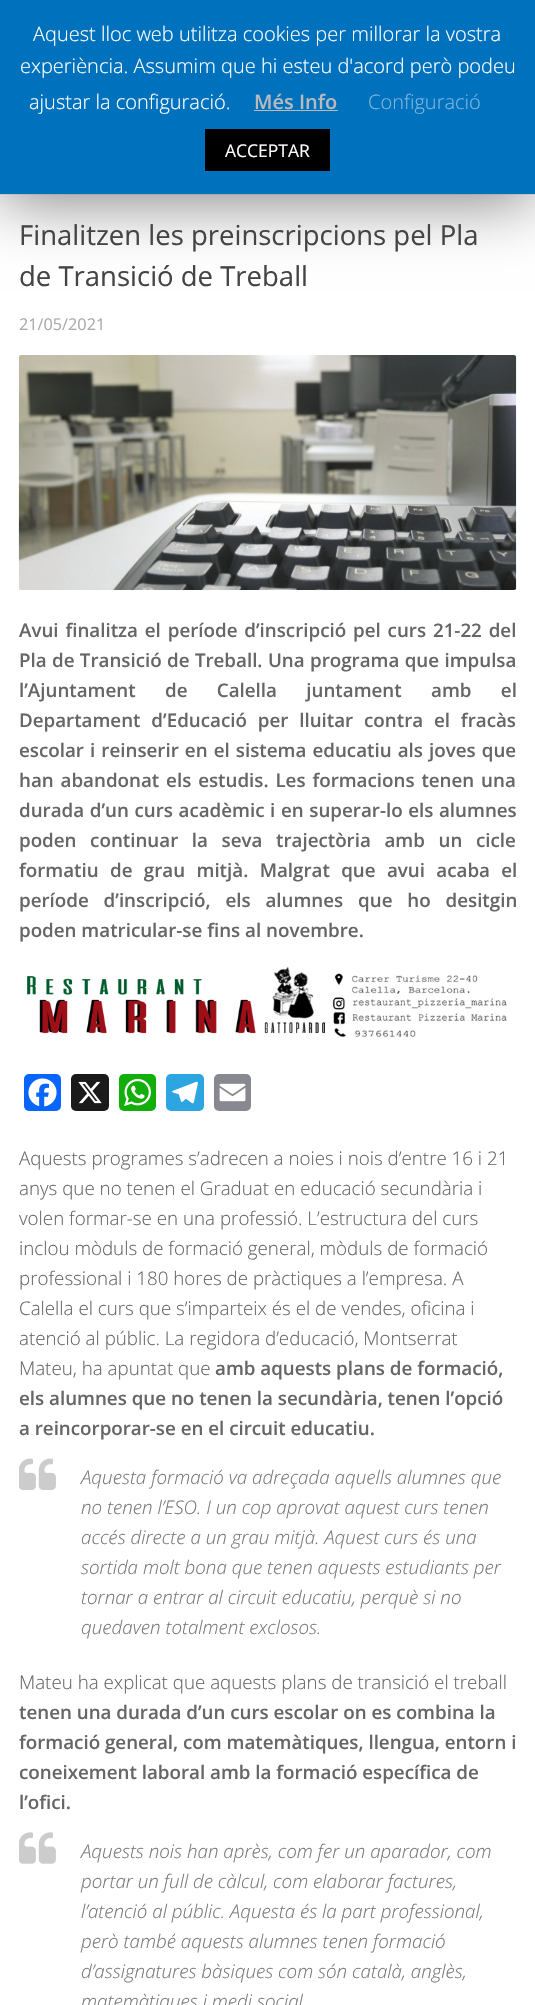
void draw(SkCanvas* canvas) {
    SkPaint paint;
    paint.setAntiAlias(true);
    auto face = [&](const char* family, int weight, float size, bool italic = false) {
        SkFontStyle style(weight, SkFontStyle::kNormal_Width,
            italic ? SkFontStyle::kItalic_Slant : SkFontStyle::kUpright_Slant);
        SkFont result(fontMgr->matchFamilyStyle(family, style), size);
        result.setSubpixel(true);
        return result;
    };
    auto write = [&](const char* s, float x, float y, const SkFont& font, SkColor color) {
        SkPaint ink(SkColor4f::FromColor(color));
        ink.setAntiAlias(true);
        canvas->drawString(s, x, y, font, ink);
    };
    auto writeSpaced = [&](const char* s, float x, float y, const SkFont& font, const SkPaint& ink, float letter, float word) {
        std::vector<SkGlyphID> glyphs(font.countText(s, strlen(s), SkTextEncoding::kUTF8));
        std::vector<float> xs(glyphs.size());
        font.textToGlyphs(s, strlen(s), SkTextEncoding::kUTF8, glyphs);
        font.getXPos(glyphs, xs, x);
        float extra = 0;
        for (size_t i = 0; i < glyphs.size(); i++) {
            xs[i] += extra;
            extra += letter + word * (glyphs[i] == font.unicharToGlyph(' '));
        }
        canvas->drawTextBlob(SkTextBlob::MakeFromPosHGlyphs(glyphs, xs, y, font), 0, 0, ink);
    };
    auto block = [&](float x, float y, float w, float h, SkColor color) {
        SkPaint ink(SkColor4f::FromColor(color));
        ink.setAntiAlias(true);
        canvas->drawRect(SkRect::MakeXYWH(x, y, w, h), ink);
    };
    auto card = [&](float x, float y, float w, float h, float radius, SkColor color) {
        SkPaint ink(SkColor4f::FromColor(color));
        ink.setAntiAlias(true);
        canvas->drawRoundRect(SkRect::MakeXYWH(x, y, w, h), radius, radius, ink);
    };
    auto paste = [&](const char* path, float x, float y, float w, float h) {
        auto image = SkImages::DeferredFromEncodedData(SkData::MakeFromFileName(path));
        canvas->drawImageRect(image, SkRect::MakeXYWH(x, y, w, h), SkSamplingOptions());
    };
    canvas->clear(SK_ColorWHITE);
    block(0, 194, 535, 1, SkColorSetRGB(238, 238, 238));
    paint.setColor(SkColorSetARGB(128, 0, 0, 0));
    paint.setMaskFilter(SkMaskFilter::MakeBlur(kNormal_SkBlurStyle, 31));
    canvas->drawRect(SkRect::MakeXYWH(0, 6, 535, 194), paint);
    paint.setMaskFilter(nullptr);
    block(0, 0, 535, 194, SkColorSetRGB(0, 113, 188));
    auto kFont1 = face("Open Sans", 300, 20);
    write("Aquest lloc web utilitza cookies per millorar la vostra", 33, 41, kFont1, SK_ColorWHITE);
    write("experiència. Assumim que hi esteu d'acord però podeu", 20, 73, kFont1, SK_ColorWHITE);
    write("ajustar la configuració.", 29, 109, kFont1, SK_ColorWHITE);
    auto kFont2 = face("Open Sans", 600, 20);
    write("Més Info", 254, 109, kFont2, SkColorSetRGB(186, 186, 186));
    block(254, 110, 84, 1, SkColorSetRGB(186, 186, 186));
    write("Configuració", 368, 109, kFont1, SkColorSetRGB(128, 184, 222));
    block(205, 129, 125, 42, SK_ColorBLACK);
    auto kFont3 = face("Open Sans", 400, 17.5f);
    write("ACCEPTAR", 225, 157, kFont3, SK_ColorWHITE);
    auto kFont4 = face("Open Sans", 400, 27.5f);
    write("Finalitzen les preinscripcions pel Pla", 19, 245, kFont4, SkColorSetRGB(68, 68, 68));
    write("de Transició de Treball", 19, 286, kFont4, SkColorSetRGB(68, 68, 68));
    auto kFont5 = face("Open Sans", 400, 16.25f);
    write("21/05/2021", 19, 330, kFont5, SkColorSetRGB(170, 170, 170));
    paste("pic1.png", 18, 355, 499, 235);
    auto kFont6 = face("Open Sans", 600, 18.75f);
    paint.setColor(SkColorSetRGB(102, 102, 102));
    writeSpaced("Avui finalitza el període d’inscripció pel curs 21-22 del", 19, 637, kFont6, paint, 0, 2);
    writeSpaced("Pla de Transició de Treball. Una programa que impulsa", 19, 667, kFont6, paint, 0, 0.5f);
    writeSpaced("l’Ajuntament de Calella juntament amb el", 19, 697, kFont6, paint, 0, 24.5f);
    writeSpaced("Departament d’Educació per lluitar contra el fracàs", 19, 727, kFont6, paint, 0, 6);
    writeSpaced("escolar i reinserir en el sistema educatiu als joves que", 19, 757, kFont6, paint, 0, 1.25f);
    writeSpaced("han abandonat els estudis. Les formacions tenen una", 19, 787, kFont6, paint, 0, 2);
    writeSpaced("durada d’un curs acadèmic i en superar-lo els alumnes", 19, 817, kFont6, paint, 0, 0.75f);
    writeSpaced("poden continuar la seva trajectòria amb un cicle", 19, 847, kFont6, paint, 0, 8.75f);
    writeSpaced("formatiu de grau mitjà. Malgrat que avui acaba el", 19, 877, kFont6, paint, 0, 6.5f);
    writeSpaced("període d’inscripció, els alumnes que ho desitgin", 19, 907, kFont6, paint, 0, 10);
    write("poden matricular-se fins al novembre.", 19, 937, kFont6, SkColorSetRGB(102, 102, 102));
    paste("pic2.png", 27, 966, 480, 72);
    card(24, 1074, 37, 37, 5, SkColorSetRGB(8, 102, 255));
    paste("pic3.png", 28, 1078, 29, 29);
    card(71, 1074, 38, 37, 5, SkColorSetRGB(26, 26, 26));
    paste("pic4.png", 78, 1081, 24, 23);
    card(119, 1074, 37, 37, 5, SkColorSetRGB(18, 175, 10));
    paste("pic5.png", 124, 1078, 27, 28);
    card(166, 1074, 38, 37, 5, SkColorSetRGB(44, 165, 224));
    paste("pic6.png", 172, 1081, 26, 23);
    card(214, 1074, 37, 37, 5, SkColorSetRGB(136, 137, 144));
    paste("pic7.png", 219, 1083, 27, 19);
    auto kFont7 = face("Open Sans", 300, 18.75f);
    write("Aquests programes s’adrecen a noies i nois d’entre 16 i 21", 19, 1165, kFont7, SkColorSetRGB(102, 102, 102));
    write("anys que no tenen el Graduat en educació secundària i", 19, 1195, kFont7, SkColorSetRGB(102, 102, 102));
    write("volen formar-se en una professió. L’estructura del curs", 19, 1225, kFont7, SkColorSetRGB(102, 102, 102));
    write("inclou mòduls de formació general, mòduls de formació", 19, 1255, kFont7, SkColorSetRGB(102, 102, 102));
    write("professional i 180 hores de pràctiques a l’empresa. A", 19, 1285, kFont7, SkColorSetRGB(102, 102, 102));
    write("Calella el curs que s’imparteix és el de vendes, oficina i", 19, 1315, kFont7, SkColorSetRGB(102, 102, 102));
    write("atenció al públic. La regidora d’educació, Montserrat", 19, 1345, kFont7, SkColorSetRGB(102, 102, 102));
    write("Mateu, ha apuntat que", 19, 1375, kFont7, SkColorSetRGB(102, 102, 102));
    write("amb aquests plans de formació,", 215, 1375, kFont6, SkColorSetRGB(102, 102, 102));
    write("els alumnes que no tenen la secundària, tenen l’opció", 19, 1405, kFont6, SkColorSetRGB(102, 102, 102));
    write("a reincorporar-se en el circuit educatiu.", 19, 1435, kFont6, SkColorSetRGB(102, 102, 102));
    paste("pic8.png", 19, 1458, 37, 32);
    auto kFont8 = face("Open Sans", 300, 18.75f, true);
    write("Aquesta formació va adreçada aquells alumnes que", 81, 1484, kFont8, SkColorSetRGB(119, 119, 119));
    write("no tenen l’ESO. I un cop aprovat aquest curs tenen", 81, 1514, kFont8, SkColorSetRGB(119, 119, 119));
    write("accés directe a un grau mitjà. Aquest curs és una", 81, 1544, kFont8, SkColorSetRGB(119, 119, 119));
    write("sortida molt bona que tenen aquests estudiants per", 81, 1574, kFont8, SkColorSetRGB(119, 119, 119));
    write("tornar a entrar al circuit educatiu, perquè si no", 81, 1604, kFont8, SkColorSetRGB(119, 119, 119));
    write("quedaven totalment exclosos.", 81, 1634, kFont8, SkColorSetRGB(119, 119, 119));
    write("Mateu ha explicat que aquests plans de transició el treball", 19, 1689, kFont7, SkColorSetRGB(102, 102, 102));
    write("tenen una durada d’un curs escolar on es combina la", 19, 1719, kFont6, SkColorSetRGB(102, 102, 102));
    write("formació general, com matemàtiques, llengua, entorn i", 19, 1749, kFont6, SkColorSetRGB(102, 102, 102));
    write("coneixement laboral amb la formació específica de", 19, 1779, kFont6, SkColorSetRGB(102, 102, 102));
    write("l’ofici.", 19, 1809, kFont6, SkColorSetRGB(102, 102, 102));
    paste("pic9.png", 19, 1832, 37, 32);
    write("Aquests nois han après, com fer un aparador, com", 81, 1858, kFont8, SkColorSetRGB(119, 119, 119));
    write("portar un full de càlcul, com elaborar factures,", 81, 1888, kFont8, SkColorSetRGB(119, 119, 119));
    write("l’atenció al públic. Aquesta és la part professional,", 81, 1918, kFont8, SkColorSetRGB(119, 119, 119));
    write("però també aquests alumnes tenen formació", 81, 1948, kFont8, SkColorSetRGB(119, 119, 119));
    write("d’assignatures bàsiques com són català, anglès,", 81, 1978, kFont8, SkColorSetRGB(119, 119, 119));
    write("matemàtiques i medi social.", 81, 2008, kFont8, SkColorSetRGB(119, 119, 119));
}
